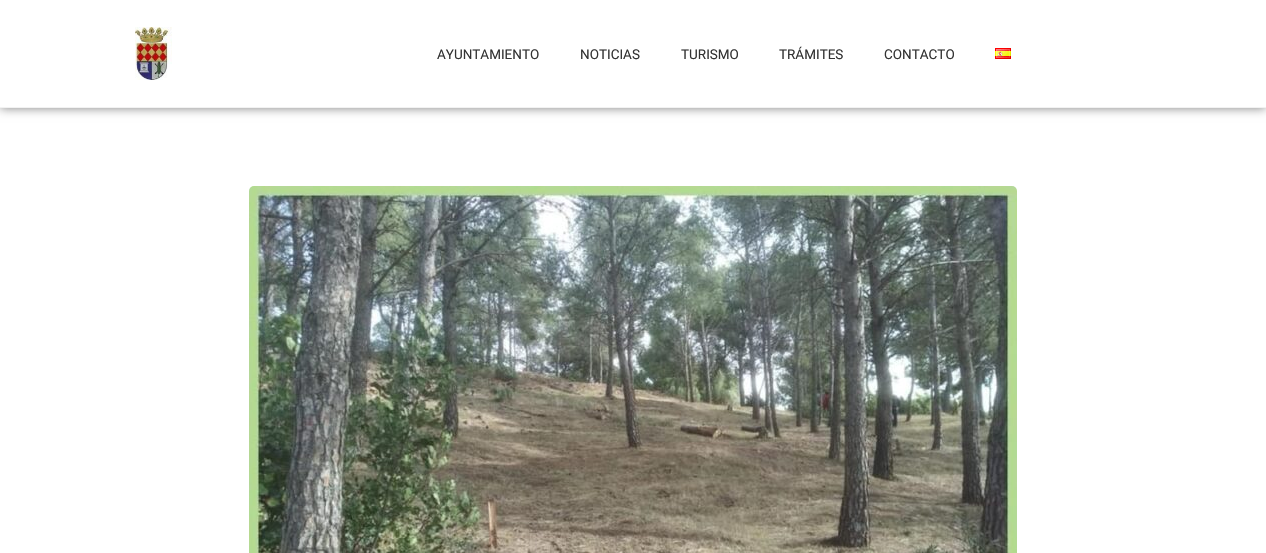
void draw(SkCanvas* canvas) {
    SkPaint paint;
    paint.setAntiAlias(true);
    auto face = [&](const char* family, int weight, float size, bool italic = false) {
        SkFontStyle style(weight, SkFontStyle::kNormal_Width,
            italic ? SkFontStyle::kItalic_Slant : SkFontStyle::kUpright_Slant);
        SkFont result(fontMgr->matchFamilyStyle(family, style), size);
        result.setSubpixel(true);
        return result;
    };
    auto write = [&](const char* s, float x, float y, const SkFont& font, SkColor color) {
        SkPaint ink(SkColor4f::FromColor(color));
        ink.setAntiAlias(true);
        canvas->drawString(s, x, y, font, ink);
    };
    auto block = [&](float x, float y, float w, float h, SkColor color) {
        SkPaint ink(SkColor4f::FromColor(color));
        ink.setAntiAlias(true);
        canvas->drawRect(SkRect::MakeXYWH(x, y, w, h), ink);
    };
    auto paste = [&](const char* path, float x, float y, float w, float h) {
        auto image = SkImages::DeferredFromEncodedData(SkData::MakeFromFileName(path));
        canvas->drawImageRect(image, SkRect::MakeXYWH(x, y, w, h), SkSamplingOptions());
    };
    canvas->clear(SK_ColorWHITE);
    paint.setColor(SkColorSetARGB(128, 0, 0, 0));
    paint.setMaskFilter(SkMaskFilter::MakeBlur(kNormal_SkBlurStyle, 5));
    canvas->drawRect(SkRect::MakeXYWH(0, 0, 1266, 108), paint);
    paint.setMaskFilter(nullptr);
    block(0, 0, 1266, 107, SK_ColorWHITE);
    block(0, 107, 1266, 1, SkColorSetRGB(242, 242, 242));
    paste("pic1.png", 135, 27, 37, 53);
    auto kFont1 = face("Roboto", 400, 13.5f);
    write("AYUNTAMIENTO", 437, 59, kFont1, SkColorSetRGB(51, 51, 51));
    write("NOTICIAS", 580, 59, kFont1, SkColorSetRGB(51, 51, 51));
    write("TURISMO", 681, 59, kFont1, SkColorSetRGB(51, 51, 51));
    write("TRÁMITES", 779, 59, kFont1, SkColorSetRGB(51, 51, 51));
    write("CONTACTO", 884, 59, kFont1, SkColorSetRGB(51, 51, 51));
    paste("pic2.png", 995, 48, 16, 11);
    paste("pic3.png", 249, 186, 768, 367);
}
